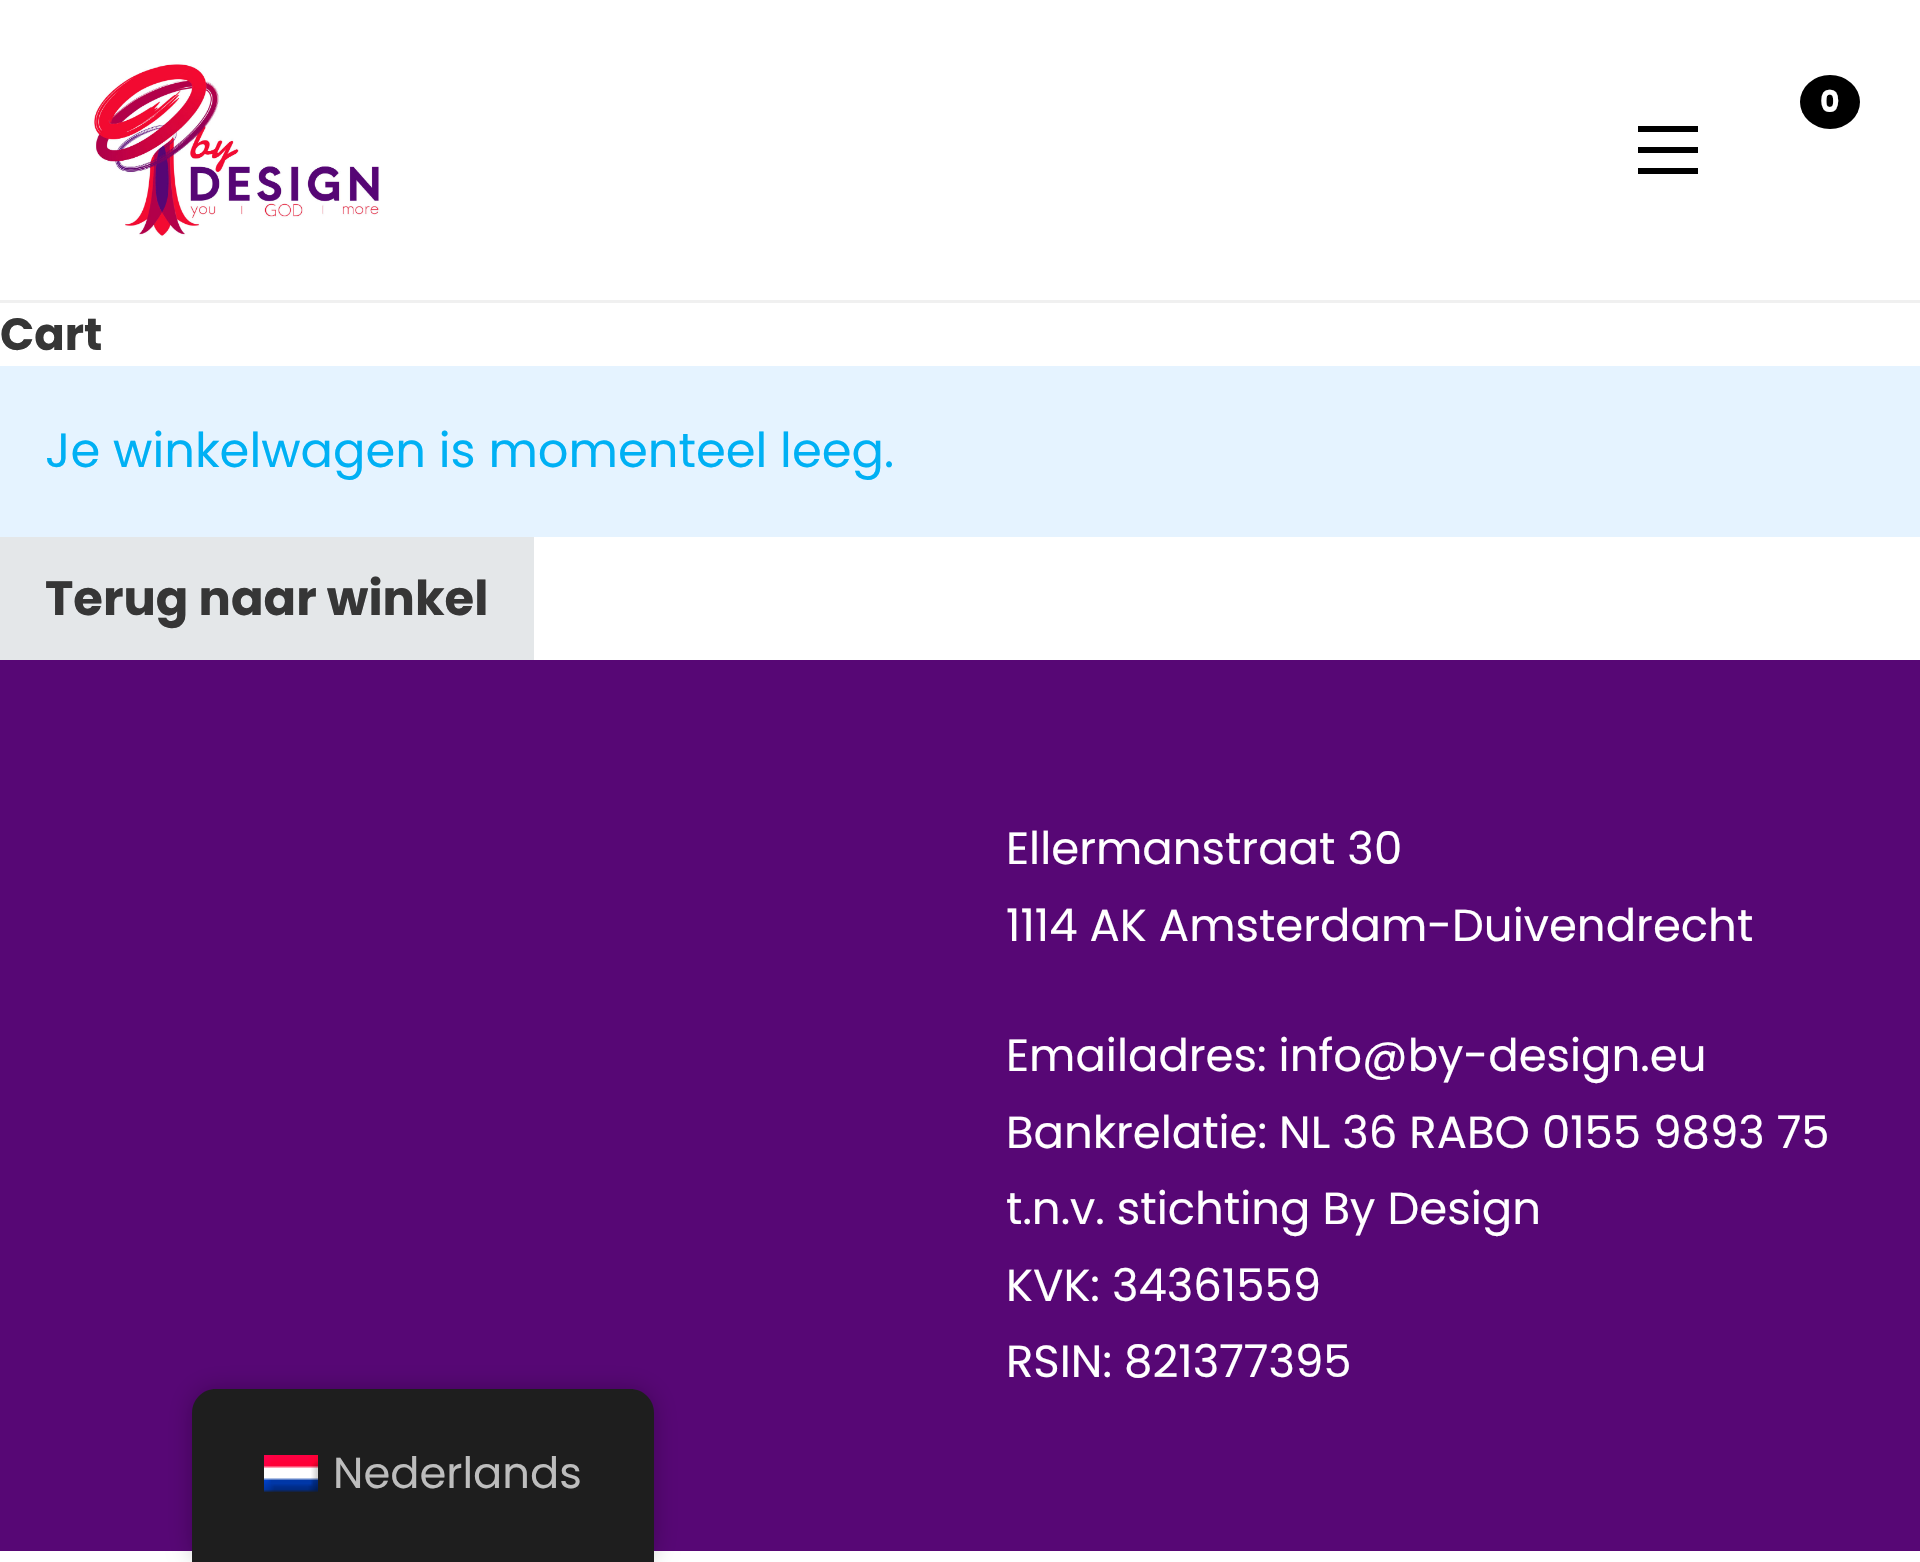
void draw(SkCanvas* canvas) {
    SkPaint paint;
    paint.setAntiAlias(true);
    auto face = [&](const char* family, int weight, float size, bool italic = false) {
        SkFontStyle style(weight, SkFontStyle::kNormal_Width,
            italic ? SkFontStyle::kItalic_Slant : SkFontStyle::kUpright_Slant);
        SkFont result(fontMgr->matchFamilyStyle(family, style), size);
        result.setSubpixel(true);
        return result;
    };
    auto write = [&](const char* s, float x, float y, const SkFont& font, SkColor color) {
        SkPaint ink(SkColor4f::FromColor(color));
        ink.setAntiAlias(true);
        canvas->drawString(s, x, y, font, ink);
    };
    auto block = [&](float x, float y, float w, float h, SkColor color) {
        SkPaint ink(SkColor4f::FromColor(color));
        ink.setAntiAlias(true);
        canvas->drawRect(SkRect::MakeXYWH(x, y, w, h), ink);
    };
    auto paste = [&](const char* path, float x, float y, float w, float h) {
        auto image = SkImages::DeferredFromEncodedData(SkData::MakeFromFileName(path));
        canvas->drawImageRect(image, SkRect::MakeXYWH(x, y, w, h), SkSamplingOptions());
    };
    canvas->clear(SK_ColorWHITE);
    block(0, 300, 1920, 3, SkColorSetRGB(240, 240, 240));
    paste("pic1.png", 92, 62, 288, 175);
    paint.setColor(SK_ColorBLACK);
    canvas->drawOval(SkRect::MakeXYWH(1800, 75, 60, 54), paint);
    auto kFont1 = face("Poppins", 700, 30);
    write("0", 1820, 112, kFont1, SK_ColorWHITE);
    block(1638, 126, 60, 6, SK_ColorBLACK);
    block(1638, 147, 60, 6, SK_ColorBLACK);
    block(1638, 168, 60, 6, SK_ColorBLACK);
    auto kFont2 = face("Poppins", 700, 45);
    write("Cart", 0, 350, kFont2, SkColorSetRGB(54, 54, 54));
    block(0, 366, 1920, 171, SkColorSetRGB(229, 243, 255));
    auto kFont3 = face("Poppins", 400, 48);
    write("Je winkelwagen is momenteel leeg.", 45, 467, kFont3, SkColorSetRGB(0, 176, 244));
    block(0, 537, 534, 123, SkColorSetRGB(228, 231, 233));
    auto kFont4 = face("Poppins", 700, 48);
    write("Terug naar winkel", 45, 615, kFont4, SkColorSetRGB(54, 54, 54));
    block(0, 660, 1920, 891, SkColorSetRGB(87, 7, 117));
    auto kFont5 = face("Poppins", 400, 45);
    write("Ellermanstraat 30", 1006, 864, kFont5, SK_ColorWHITE);
    write("1114 AK Amsterdam-Duivendrecht", 1006, 941, kFont5, SK_ColorWHITE);
    write("Emailadres: info@by-design.eu", 1006, 1071, kFont5, SK_ColorWHITE);
    write("Bankrelatie: NL 36 RABO 0155 9893 75", 1006, 1148, kFont5, SK_ColorWHITE);
    write("t.n.v. stichting By Design", 1006, 1224, kFont5, SK_ColorWHITE);
    write("KVK: 34361559", 1006, 1301, kFont5, SK_ColorWHITE);
    write("RSIN: 821377395", 1006, 1377, kFont5, SK_ColorWHITE);
    paint.setColor(SkColorSetARGB(64, 0, 0, 0));
    paint.setMaskFilter(SkMaskFilter::MakeBlur(kNormal_SkBlurStyle, 12));
    canvas->drawRoundRect(SkRect::MakeXYWH(192, 1389, 462, 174), 24, 24, paint);
    paint.setMaskFilter(nullptr);
    paint.setColor(SkColorSetRGB(30, 30, 30));
    canvas->drawPath(SkPathBuilder().moveTo(216, 1389).lineTo(630, 1389).cubicTo(643.5f, 1389, 654, 1399.5f, 654, 1413).lineTo(654, 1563).lineTo(192, 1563).lineTo(192, 1413).cubicTo(192, 1399.5f, 202.5f, 1389, 216, 1389).close().detach(), paint);
    paste("pic2.png", 264, 1455, 54, 37);
    auto kFont6 = face("Poppins", 400, 43.25f);
    write("Nederlands", 333, 1488, kFont6, SkColorSetRGB(189, 189, 189));
}
